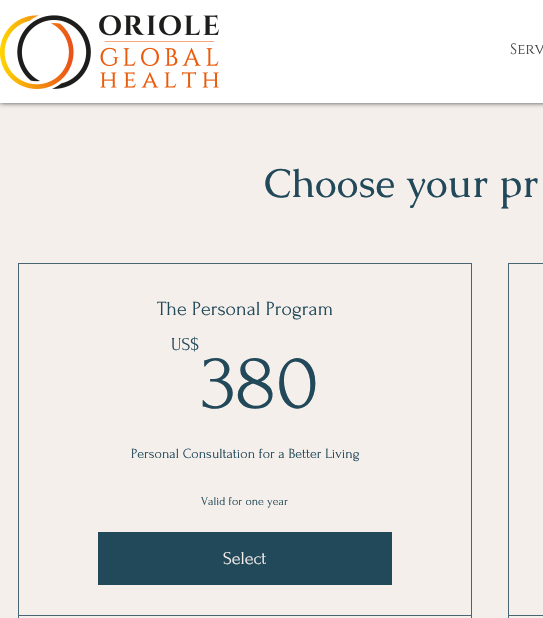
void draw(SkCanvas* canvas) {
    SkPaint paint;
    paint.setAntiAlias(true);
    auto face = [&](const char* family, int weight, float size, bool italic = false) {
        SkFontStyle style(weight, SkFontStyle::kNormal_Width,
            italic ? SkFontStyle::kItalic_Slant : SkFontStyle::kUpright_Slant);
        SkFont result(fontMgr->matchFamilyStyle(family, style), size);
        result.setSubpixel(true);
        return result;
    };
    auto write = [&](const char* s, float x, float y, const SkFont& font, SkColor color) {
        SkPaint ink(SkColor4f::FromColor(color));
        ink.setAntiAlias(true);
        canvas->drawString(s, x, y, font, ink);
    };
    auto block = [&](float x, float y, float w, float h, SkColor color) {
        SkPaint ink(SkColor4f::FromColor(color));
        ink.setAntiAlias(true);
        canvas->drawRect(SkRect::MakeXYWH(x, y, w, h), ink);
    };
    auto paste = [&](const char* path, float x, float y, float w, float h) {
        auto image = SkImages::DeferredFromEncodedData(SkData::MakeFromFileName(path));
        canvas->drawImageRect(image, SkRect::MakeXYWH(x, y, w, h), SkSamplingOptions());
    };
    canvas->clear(SkColorSetRGB(244, 239, 235));
    paint.setColor(SkColorSetARGB(179, 0, 0, 0));
    paint.setMaskFilter(SkMaskFilter::MakeBlur(kNormal_SkBlurStyle, 2.5f));
    canvas->drawRect(SkRect::MakeXYWH(0, 0, 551, 103), paint);
    paint.setMaskFilter(nullptr);
    block(0, 0, 543, 103, SK_ColorWHITE);
    paste("pic1.png", 0, 15, 219, 74);
    auto kFont1 = face("Cinzel", 400, 15);
    write("Serv", 510, 54, kFont1, SkColorSetRGB(65, 65, 65));
    auto kFont2 = face("Caudex", 400, 40);
    write("Choose your pr", 264, 197, kFont2, SkColorSetRGB(34, 73, 90));
    paint.setStyle(SkPaint::kStroke_Style);
    paint.setStrokeWidth(1);
    paint.setColor(SkColorSetRGB(72, 101, 115));
    canvas->drawRect(SkRect::MakeXYWH(18.5f, 263.5f, 453, 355), paint);
    auto kFont3 = face("Forum", 400, 20);
    write("The Personal Program", 157, 315, kFont3, SkColorSetRGB(34, 73, 90));
    auto kFont4 = face("Forum", 400, 18);
    write("US$", 171, 350, kFont4, SkColorSetRGB(34, 73, 90));
    auto kFont5 = face("Forum", 400, 80);
    write("380", 202, 408, kFont5, SkColorSetRGB(34, 73, 90));
    auto kFont6 = face("Forum", 400, 14);
    write("Personal Consultation for a Better Living", 131, 458, kFont6, SkColorSetRGB(34, 73, 90));
    auto kFont7 = face("Forum", 400, 12);
    write("Valid for one year", 201, 505, kFont7, SkColorSetRGB(34, 73, 90));
    block(98, 532, 294, 53, SkColorSetRGB(34, 73, 90));
    write("Select", 223, 564, kFont4, SkColorSetRGB(244, 239, 235));
    block(19, 615, 452, 1, SkColorSetRGB(72, 101, 115));
    canvas->drawRect(SkRect::MakeXYWH(508.5f, 263.5f, 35, 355), paint);
    block(509, 615, 34, 1, SkColorSetRGB(72, 101, 115));
}
